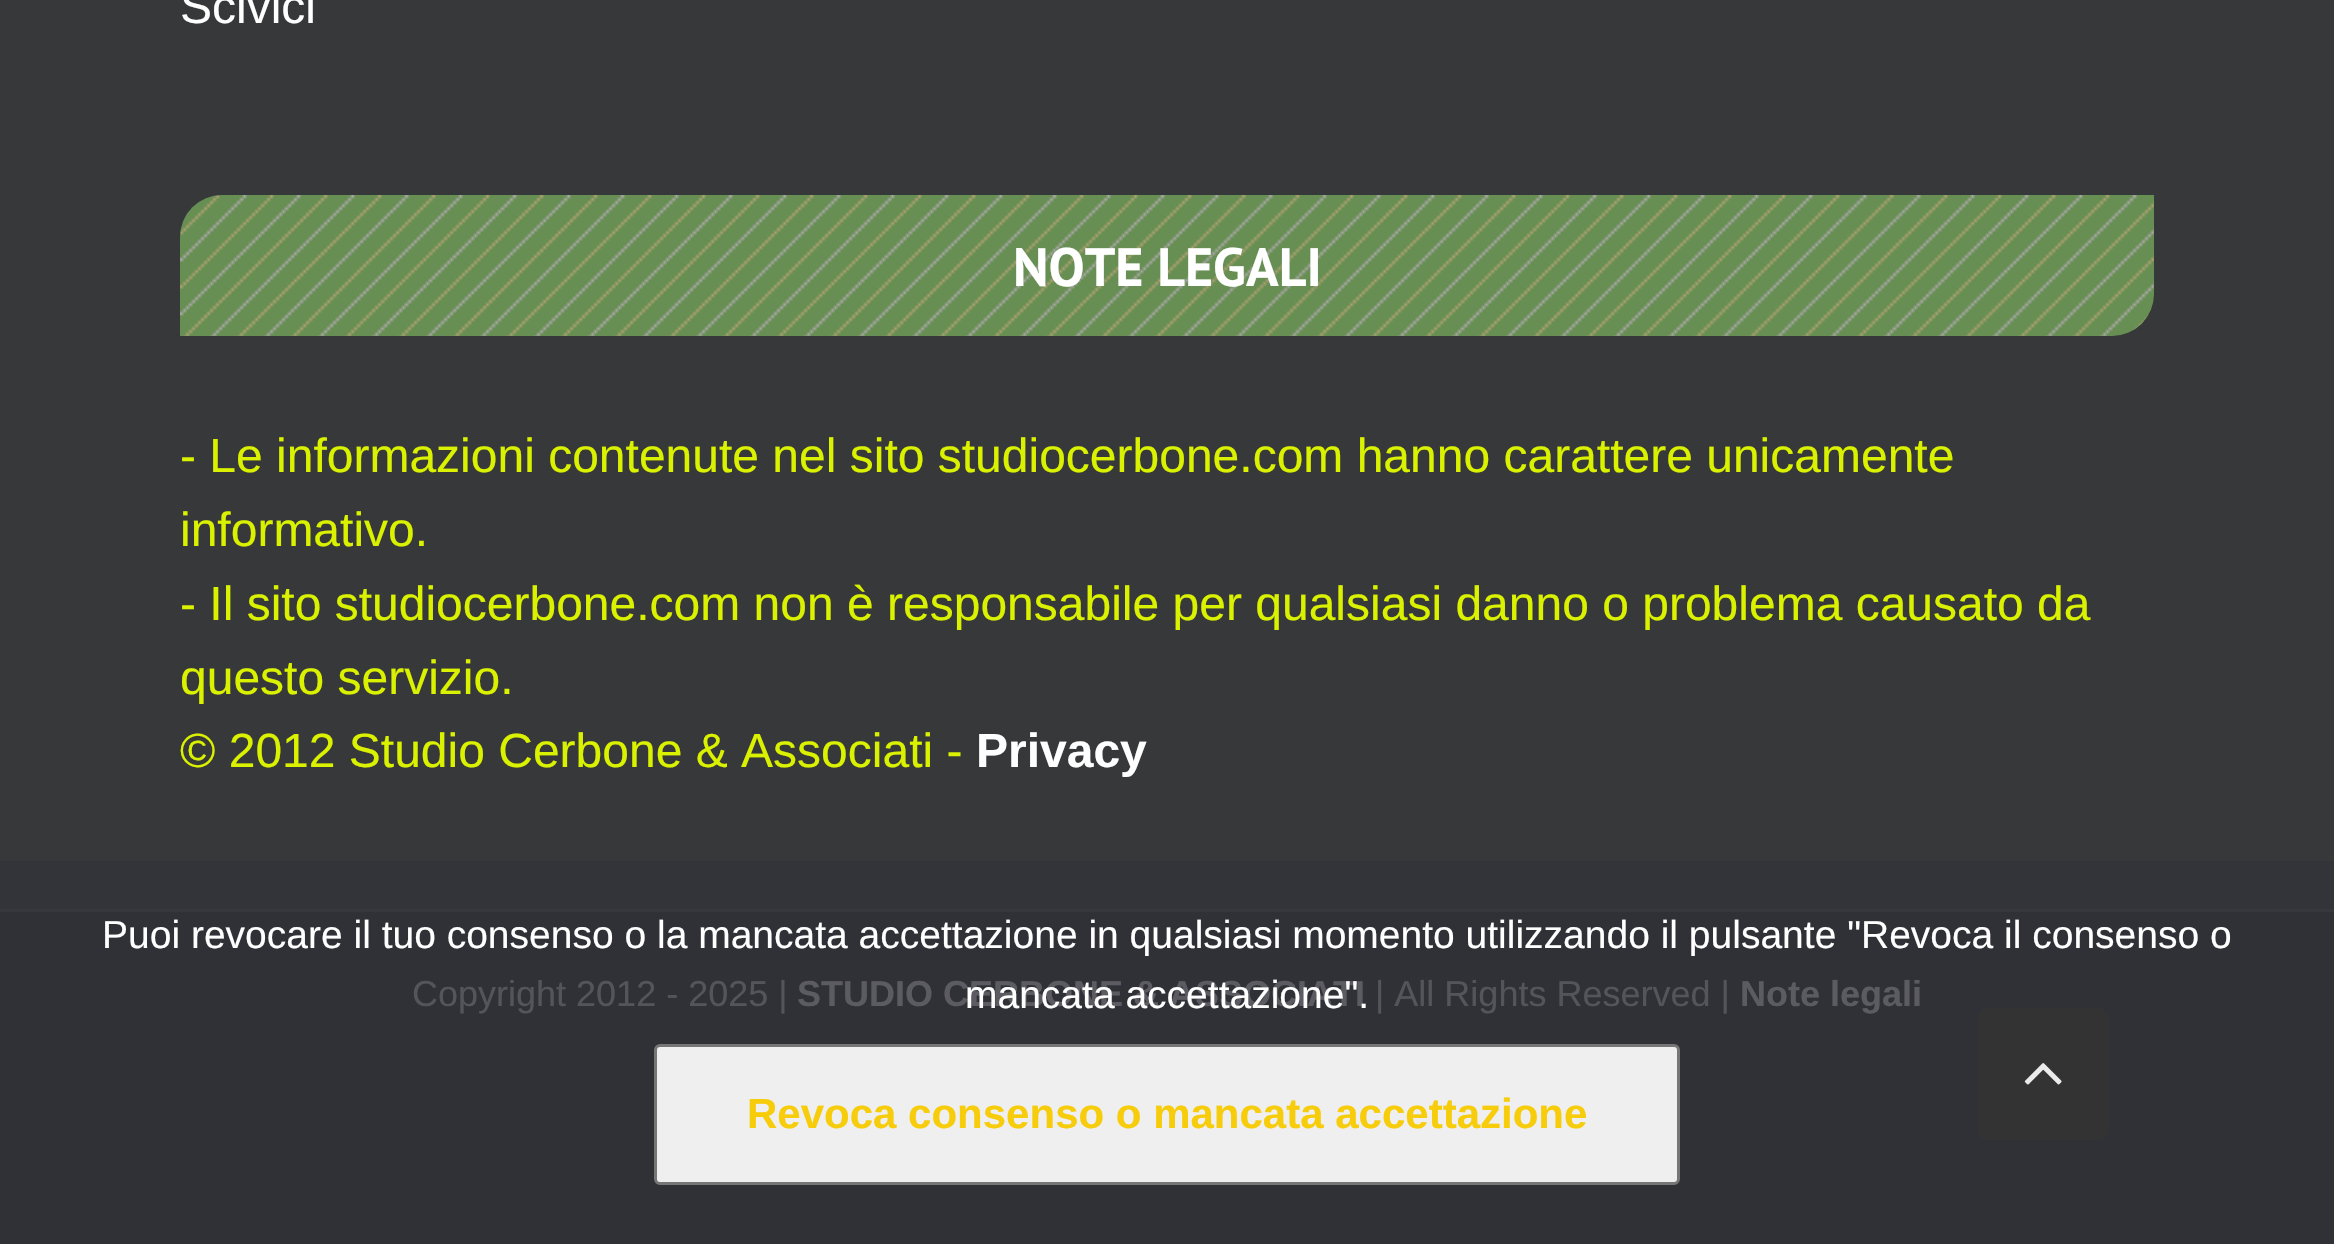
void draw(SkCanvas* canvas) {
    SkPaint paint;
    paint.setAntiAlias(true);
    auto face = [&](const char* family, int weight, float size, bool italic = false) {
        SkFontStyle style(weight, SkFontStyle::kNormal_Width,
            italic ? SkFontStyle::kItalic_Slant : SkFontStyle::kUpright_Slant);
        SkFont result(fontMgr->matchFamilyStyle(family, style), size);
        result.setSubpixel(true);
        return result;
    };
    auto write = [&](const char* s, float x, float y, const SkFont& font, SkColor color) {
        SkPaint ink(SkColor4f::FromColor(color));
        ink.setAntiAlias(true);
        canvas->drawString(s, x, y, font, ink);
    };
    auto block = [&](float x, float y, float w, float h, SkColor color) {
        SkPaint ink(SkColor4f::FromColor(color));
        ink.setAntiAlias(true);
        canvas->drawRect(SkRect::MakeXYWH(x, y, w, h), ink);
    };
    auto card = [&](float x, float y, float w, float h, float radius, SkColor color) {
        SkPaint ink(SkColor4f::FromColor(color));
        ink.setAntiAlias(true);
        canvas->drawRoundRect(SkRect::MakeXYWH(x, y, w, h), radius, radius, ink);
    };
    auto paste = [&](const char* path, float x, float y, float w, float h) {
        auto image = SkImages::DeferredFromEncodedData(SkData::MakeFromFileName(path));
        canvas->drawImageRect(image, SkRect::MakeXYWH(x, y, w, h), SkSamplingOptions());
    };
    canvas->clear(SkColorSetRGB(54, 56, 57));
    block(0, 861, 2334, 48, SkColorSetRGB(51, 51, 58));
    auto kFont1 = face("Liberation Sans", 400, 48);
    write("Scivici", 180, 23, kFont1, SK_ColorWHITE);
    paste("pic1.png", 180, 195, 1974, 141);
    auto kFont2 = face("PT Sans", 700, 54);
    write("NOTE LEGALI", 1013, 286, kFont2, SK_ColorWHITE);
    write("- Le informazioni contenute nel sito studiocerbone.com hanno carattere unicamente", 180, 472, kFont1, SkColorSetRGB(218, 242, 0));
    write("informativo.", 180, 546, kFont1, SkColorSetRGB(218, 242, 0));
    write("- Il sito studiocerbone.com non è responsabile per qualsiasi danno o problema causato da", 180, 620, kFont1, SkColorSetRGB(218, 242, 0));
    write("questo servizio.", 180, 694, kFont1, SkColorSetRGB(218, 242, 0));
    write("© 2012 Studio Cerbone & Associati -", 180, 767, kFont1, SkColorSetRGB(218, 242, 0));
    auto kFont3 = face("Liberation Sans", 700, 48);
    write("Privacy", 976, 767, kFont3, SK_ColorWHITE);
    block(0, 912, 2334, 332, SkColorSetRGB(48, 48, 55));
    block(0, 909, 2334, 3, SkColorSetRGB(55, 55, 62));
    auto kFont4 = face("Liberation Sans", 400, 36);
    write("Copyright 2012 - 2025 |", 412, 1006, kFont4, SkColorSetRGB(84, 85, 91));
    auto kFont5 = face("Liberation Sans", 700, 36);
    write("STUDIO CERBONE & ASSOCIATI", 797, 1006, kFont5, SkColorSetRGB(91, 91, 97));
    write("| All Rights Reserved |", 1375, 1006, kFont4, SkColorSetRGB(84, 85, 91));
    write("Note legali", 1740, 1006, kFont5, SkColorSetRGB(91, 91, 97));
    auto kFont6 = face("Liberation Sans", 400, 39);
    write("Puoi revocare il tuo consenso o la mancata accettazione in qualsiasi momento utilizzando il pulsante \"Revoca il consenso o", 102, 948, kFont6, SK_ColorWHITE);
    write("mancata accettazione\".", 965, 1008, kFont6, SK_ColorWHITE);
    paint.setColor(SkColorSetRGB(239, 239, 239));
    canvas->drawRoundRect(SkRect::MakeXYWH(655.5f, 1045.5f, 1023, 138), 4.5f, 4.5f, paint);
    paint.setStyle(SkPaint::kStroke_Style);
    paint.setStrokeWidth(3);
    paint.setColor(SkColorSetRGB(118, 118, 118));
    canvas->drawRoundRect(SkRect::MakeXYWH(655.5f, 1045.5f, 1023, 138), 4.5f, 4.5f, paint);
    auto kFont7 = face("Liberation Sans", 700, 42);
    write("Revoca consenso o mancata accettazione", 747, 1128, kFont7, SkColorSetRGB(247, 204, 10));
    card(1977, 1008, 132, 132, 12, SkColorSetRGB(51, 51, 51));
    paste("pic2.png", 2024, 1063, 38, 22);
}
